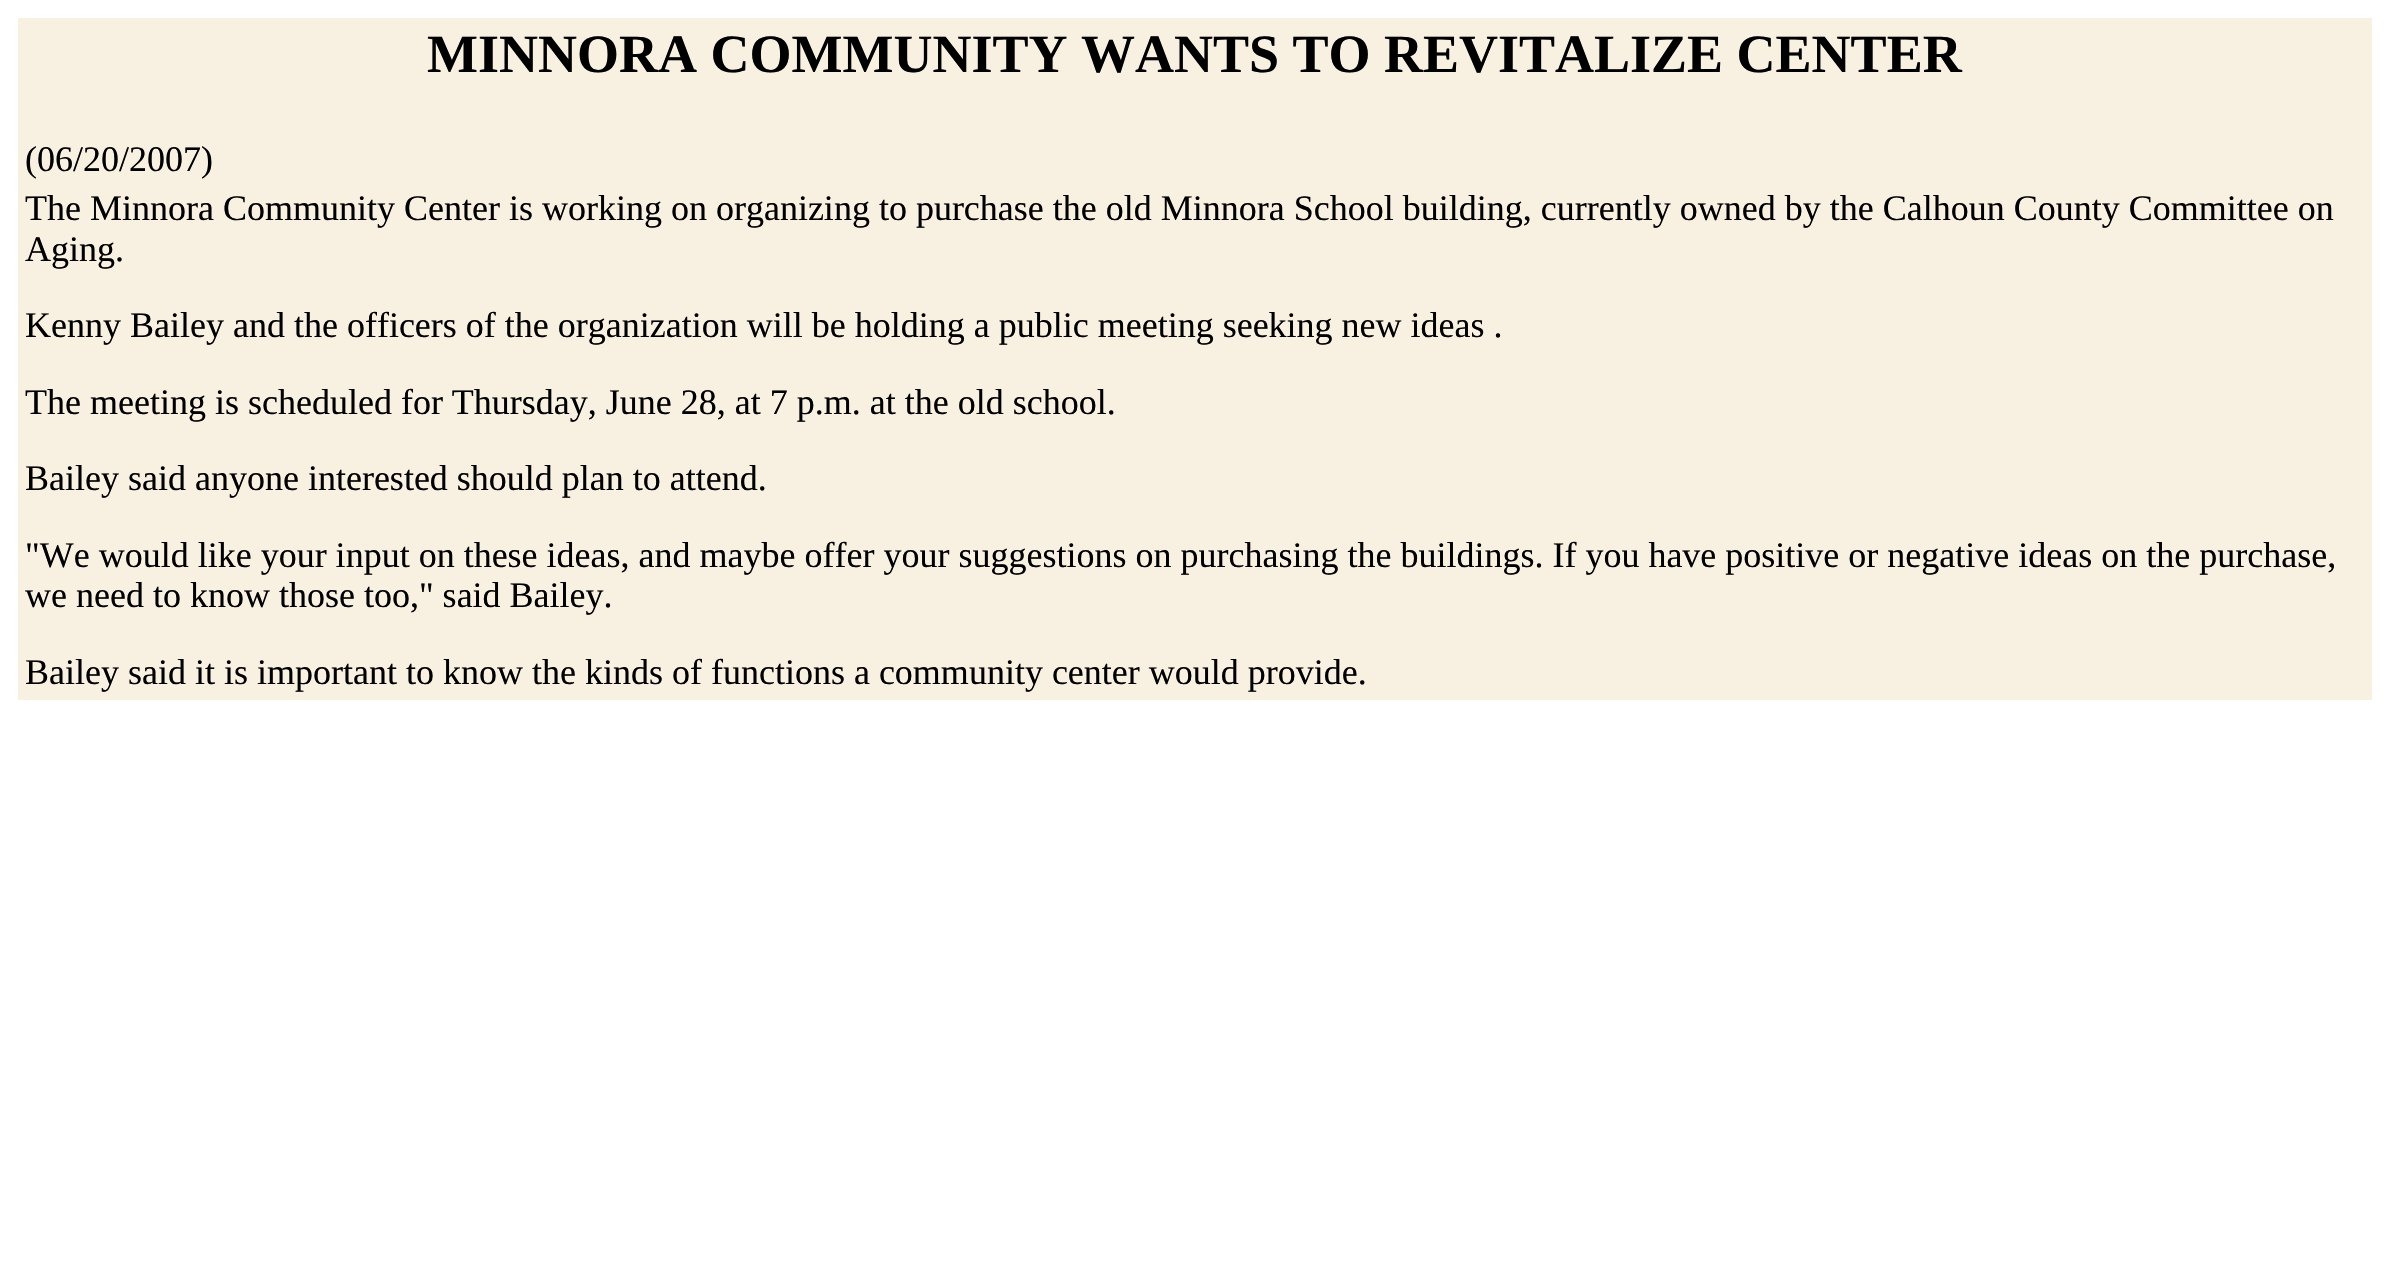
void draw(SkCanvas* canvas) {
    SkPaint paint;
    paint.setAntiAlias(true);
    auto face = [&](const char* family, int weight, float size, bool italic = false) {
        SkFontStyle style(weight, SkFontStyle::kNormal_Width,
            italic ? SkFontStyle::kItalic_Slant : SkFontStyle::kUpright_Slant);
        SkFont result(fontMgr->matchFamilyStyle(family, style), size);
        result.setSubpixel(true);
        return result;
    };
    auto write = [&](const char* s, float x, float y, const SkFont& font, SkColor color) {
        SkPaint ink(SkColor4f::FromColor(color));
        ink.setAntiAlias(true);
        canvas->drawString(s, x, y, font, ink);
    };
    auto block = [&](float x, float y, float w, float h, SkColor color) {
        SkPaint ink(SkColor4f::FromColor(color));
        ink.setAntiAlias(true);
        canvas->drawRect(SkRect::MakeXYWH(x, y, w, h), ink);
    };
    canvas->clear(SK_ColorWHITE);
    block(18, 18, 2354, 682, SkColorSetRGB(248, 240, 224));
    auto kFont1 = face("Liberation Serif", 700, 54);
    write("MINNORA COMMUNITY WANTS TO REVITALIZE CENTER", 427, 72, kFont1, SK_ColorBLACK);
    auto kFont2 = face("Liberation Serif", 400, 36);
    write("(06/20/2007)", 25, 171, kFont2, SK_ColorBLACK);
    write("The Minnora Community Center is working on organizing to purchase the old Minnora School building, currently owned by the Calhoun County Committee on", 25, 220, kFont2, SK_ColorBLACK);
    write("Aging.", 25, 261, kFont2, SK_ColorBLACK);
    write("Kenny Bailey and the officers of the organization will be holding a public meeting seeking new ideas .", 25, 337, kFont2, SK_ColorBLACK);
    write("The meeting is scheduled for Thursday, June 28, at 7 p.m. at the old school.", 25, 414, kFont2, SK_ColorBLACK);
    write("Bailey said anyone interested should plan to attend.", 25, 490, kFont2, SK_ColorBLACK);
    write("\"We would like your input on these ideas, and maybe offer your suggestions on purchasing the buildings. If you have positive or negative ideas on the purchase,", 25, 567, kFont2, SK_ColorBLACK);
    write("we need to know those too,\" said Bailey.", 25, 607, kFont2, SK_ColorBLACK);
    write("Bailey said it is important to know the kinds of functions a community center would provide.", 25, 684, kFont2, SK_ColorBLACK);
}
